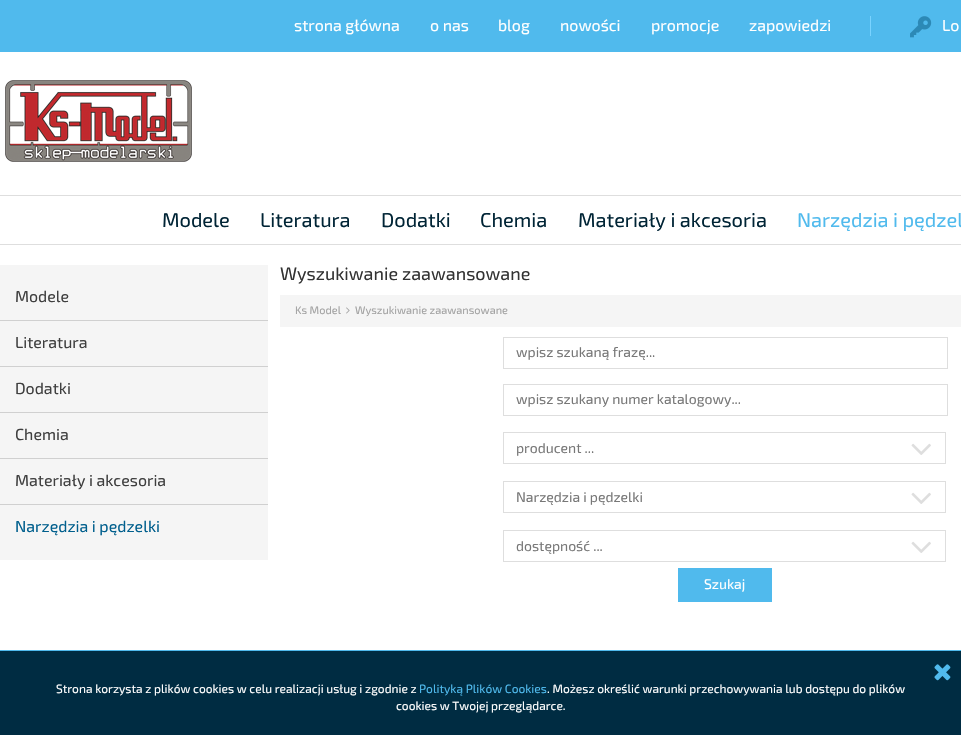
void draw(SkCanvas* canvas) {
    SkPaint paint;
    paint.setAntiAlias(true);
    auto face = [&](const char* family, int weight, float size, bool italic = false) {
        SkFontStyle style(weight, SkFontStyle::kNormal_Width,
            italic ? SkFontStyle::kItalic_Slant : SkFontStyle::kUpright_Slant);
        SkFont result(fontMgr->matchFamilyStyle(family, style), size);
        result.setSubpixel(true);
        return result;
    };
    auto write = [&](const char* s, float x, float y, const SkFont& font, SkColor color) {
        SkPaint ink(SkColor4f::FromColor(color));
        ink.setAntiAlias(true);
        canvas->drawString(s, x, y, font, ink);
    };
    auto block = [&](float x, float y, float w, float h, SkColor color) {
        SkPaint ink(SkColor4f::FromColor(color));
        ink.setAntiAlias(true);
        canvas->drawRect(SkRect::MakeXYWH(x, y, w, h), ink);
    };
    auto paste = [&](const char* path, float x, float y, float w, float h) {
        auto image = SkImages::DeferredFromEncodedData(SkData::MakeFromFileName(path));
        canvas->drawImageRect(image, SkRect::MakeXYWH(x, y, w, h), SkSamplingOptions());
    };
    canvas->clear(SK_ColorWHITE);
    block(0, 0, 961, 52, SkColorSetRGB(80, 186, 237));
    auto kFont1 = face("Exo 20", 400, 16);
    write("strona główna", 294, 31, kFont1, SK_ColorWHITE);
    write("o nas", 430, 31, kFont1, SK_ColorWHITE);
    write("blog", 498, 31, kFont1, SK_ColorWHITE);
    write("nowości", 560, 31, kFont1, SK_ColorWHITE);
    write("promocje", 651, 31, kFont1, SK_ColorWHITE);
    write("zapowiedzi", 749, 31, kFont1, SK_ColorWHITE);
    block(870, 16, 1, 20, SkColorSetRGB(121, 211, 255));
    paste("pic1.png", 910, 16, 22, 22);
    write("Lo", 942, 31, kFont1, SK_ColorWHITE);
    paste("pic2.png", 5, 80, 187, 82);
    block(0, 195, 961, 1, SkColorSetRGB(222, 222, 222));
    block(0, 244, 961, 1, SkColorSetRGB(222, 222, 222));
    auto kFont2 = face("Exo 20", 400, 20);
    write("Modele", 162, 227, kFont2, SkColorSetRGB(0, 36, 53));
    write("Literatura", 260, 227, kFont2, SkColorSetRGB(0, 36, 53));
    write("Dodatki", 381, 227, kFont2, SkColorSetRGB(0, 36, 53));
    write("Chemia", 480, 227, kFont2, SkColorSetRGB(0, 36, 53));
    write("Materiały i akcesoria", 578, 227, kFont2, SkColorSetRGB(0, 36, 53));
    write("Narzędzia i pędzel", 797, 227, kFont2, SkColorSetRGB(80, 186, 237));
    block(0, 265, 268, 295, SkColorSetRGB(245, 245, 245));
    write("Modele", 15, 302, kFont1, SkColorSetRGB(63, 63, 63));
    block(0, 320, 268, 1, SkColorSetRGB(208, 208, 208));
    write("Literatura", 15, 348, kFont1, SkColorSetRGB(63, 63, 63));
    block(0, 366, 268, 1, SkColorSetRGB(208, 208, 208));
    write("Dodatki", 15, 394, kFont1, SkColorSetRGB(63, 63, 63));
    block(0, 412, 268, 1, SkColorSetRGB(208, 208, 208));
    write("Chemia", 15, 440, kFont1, SkColorSetRGB(63, 63, 63));
    block(0, 458, 268, 1, SkColorSetRGB(208, 208, 208));
    write("Materiały i akcesoria", 15, 486, kFont1, SkColorSetRGB(63, 63, 63));
    block(0, 504, 268, 1, SkColorSetRGB(208, 208, 208));
    write("Narzędzia i pędzelki", 15, 532, kFont1, SkColorSetRGB(0, 95, 141));
    auto kFont3 = face("Exo 20", 400, 18);
    write("Wyszukiwanie zaawansowane", 280, 280, kFont3, SkColorSetRGB(51, 51, 51));
    block(280, 295, 681, 32, SkColorSetRGB(245, 245, 245));
    auto kFont4 = face("Exo 20", 400, 11);
    write("Ks Model", 295, 314, kFont4, SkColorSetRGB(162, 162, 162));
    paste("pic3.png", 346, 307, 4, 7);
    write("Wyszukiwanie zaawansowane", 355, 314, kFont4, SkColorSetRGB(162, 162, 162));
    paint.setStyle(SkPaint::kStroke_Style);
    paint.setStrokeWidth(1);
    paint.setColor(SkColorSetRGB(222, 222, 222));
    canvas->drawRect(SkRect::MakeXYWH(503.5f, 337.5f, 444, 31), paint);
    auto kFont5 = face("Exo 20", 400, 14);
    write("wpisz szukaną frazę...", 516, 357, kFont5, SkColorSetRGB(119, 119, 119));
    canvas->drawRect(SkRect::MakeXYWH(503.5f, 384.5f, 444, 31), paint);
    write("wpisz szukany numer katalogowy...", 516, 404, kFont5, SkColorSetRGB(119, 119, 119));
    canvas->drawRect(SkRect::MakeXYWH(503.5f, 432.5f, 442, 31), paint);
    write("producent ...", 516, 453, kFont5, SkColorSetRGB(119, 119, 119));
    paste("pic4.png", 911, 443, 20, 12);
    canvas->drawRect(SkRect::MakeXYWH(503.5f, 481.5f, 442, 31), paint);
    write("Narzędzia i pędzelki", 516, 502, kFont5, SkColorSetRGB(119, 119, 119));
    paste("pic4.png", 911, 492, 20, 12);
    canvas->drawRect(SkRect::MakeXYWH(503.5f, 530.5f, 442, 31), paint);
    write("dostępność ...", 516, 551, kFont5, SkColorSetRGB(119, 119, 119));
    paste("pic4.png", 911, 541, 20, 12);
    block(678, 568, 94, 34, SkColorSetRGB(80, 186, 237));
    write("Szukaj", 704, 589, kFont5, SK_ColorWHITE);
    block(0, 650, 961, 1, SkColorSetRGB(80, 186, 237));
    block(0, 651, 961, 84, SkColorSetRGB(0, 44, 66));
    paste("pic5.png", 934, 664, 17, 17);
    auto kFont6 = face("Exo 20", 400, 12);
    write("Strona korzysta z plików cookies w celu realizacji usług i zgodnie z", 56, 693, kFont6, SK_ColorWHITE);
    write("Polityką Plików Cookies", 419, 693, kFont6, SkColorSetRGB(80, 186, 237));
    write(". Możesz określić warunki przechowywania lub dostępu do plików", 547, 693, kFont6, SK_ColorWHITE);
    write("cookies w Twojej przeglądarce.", 396, 710, kFont6, SK_ColorWHITE);
}
